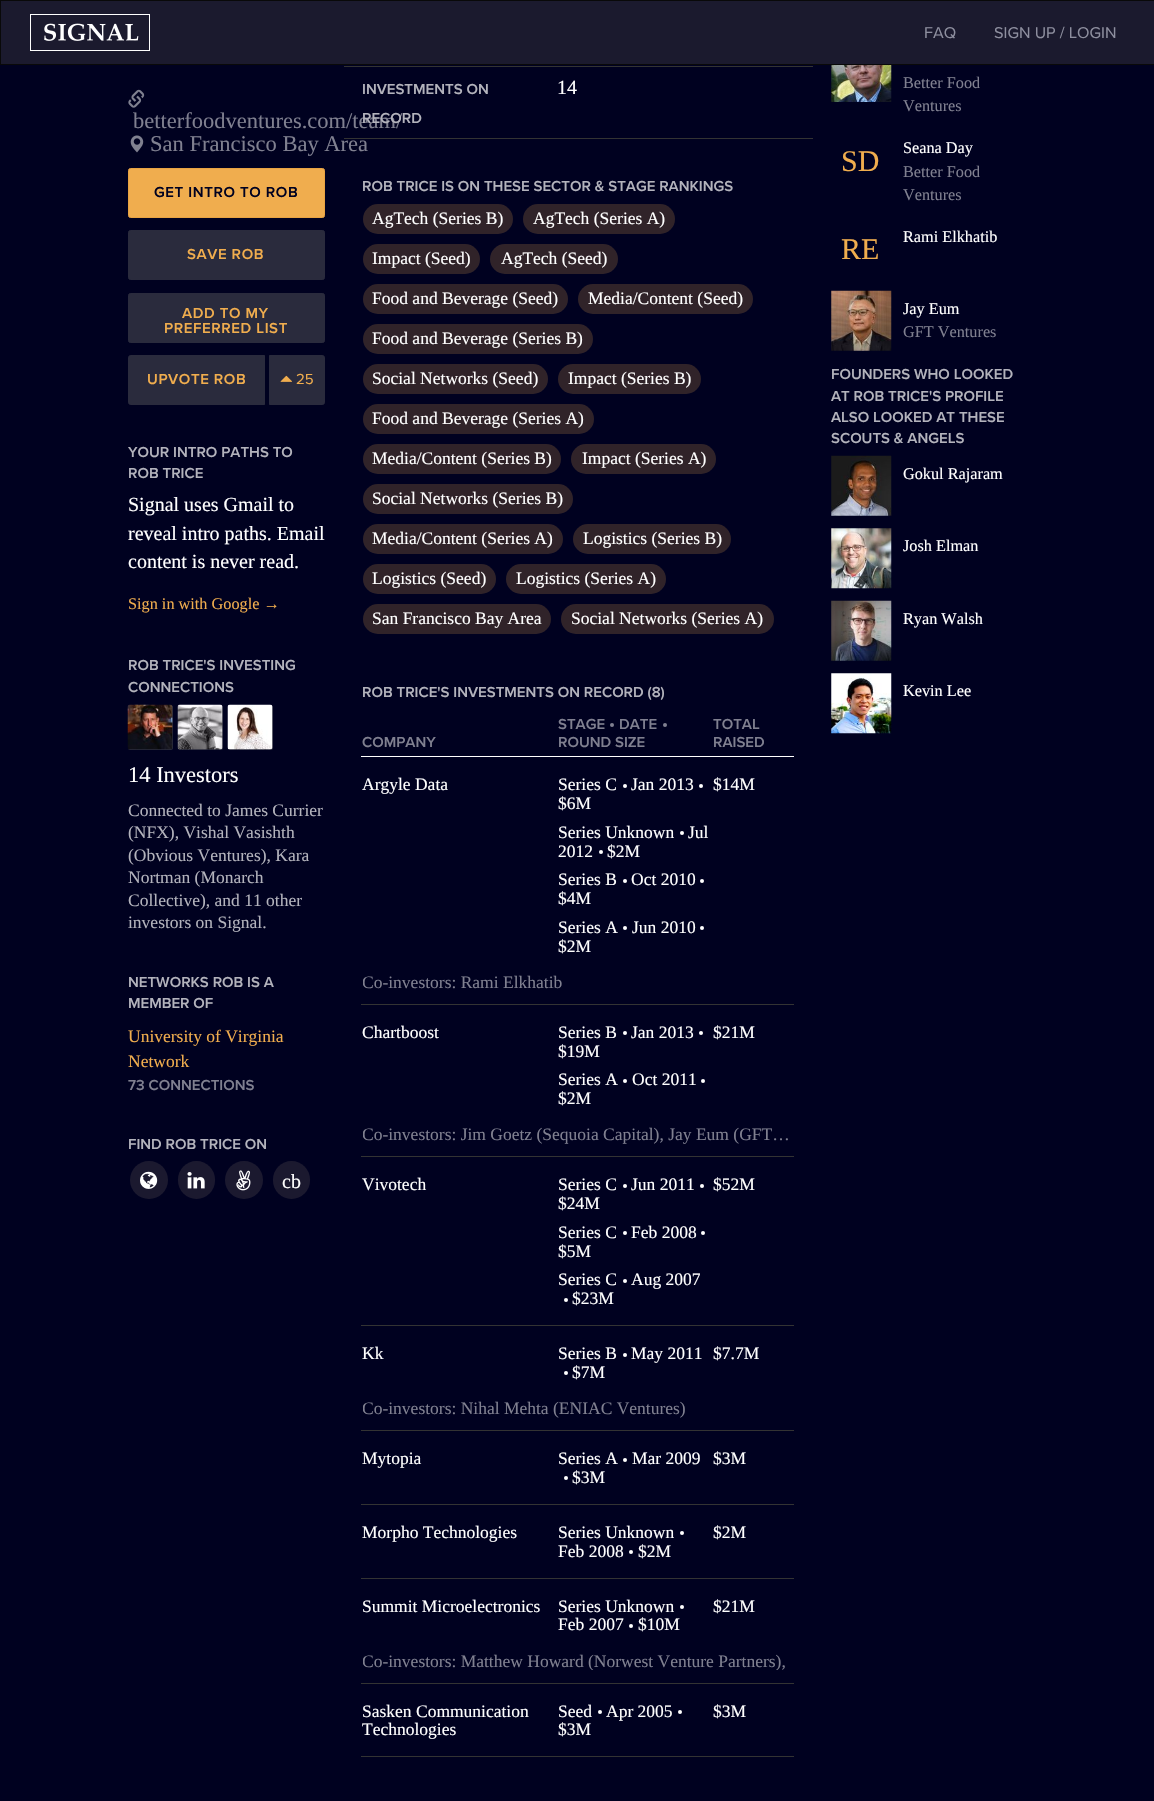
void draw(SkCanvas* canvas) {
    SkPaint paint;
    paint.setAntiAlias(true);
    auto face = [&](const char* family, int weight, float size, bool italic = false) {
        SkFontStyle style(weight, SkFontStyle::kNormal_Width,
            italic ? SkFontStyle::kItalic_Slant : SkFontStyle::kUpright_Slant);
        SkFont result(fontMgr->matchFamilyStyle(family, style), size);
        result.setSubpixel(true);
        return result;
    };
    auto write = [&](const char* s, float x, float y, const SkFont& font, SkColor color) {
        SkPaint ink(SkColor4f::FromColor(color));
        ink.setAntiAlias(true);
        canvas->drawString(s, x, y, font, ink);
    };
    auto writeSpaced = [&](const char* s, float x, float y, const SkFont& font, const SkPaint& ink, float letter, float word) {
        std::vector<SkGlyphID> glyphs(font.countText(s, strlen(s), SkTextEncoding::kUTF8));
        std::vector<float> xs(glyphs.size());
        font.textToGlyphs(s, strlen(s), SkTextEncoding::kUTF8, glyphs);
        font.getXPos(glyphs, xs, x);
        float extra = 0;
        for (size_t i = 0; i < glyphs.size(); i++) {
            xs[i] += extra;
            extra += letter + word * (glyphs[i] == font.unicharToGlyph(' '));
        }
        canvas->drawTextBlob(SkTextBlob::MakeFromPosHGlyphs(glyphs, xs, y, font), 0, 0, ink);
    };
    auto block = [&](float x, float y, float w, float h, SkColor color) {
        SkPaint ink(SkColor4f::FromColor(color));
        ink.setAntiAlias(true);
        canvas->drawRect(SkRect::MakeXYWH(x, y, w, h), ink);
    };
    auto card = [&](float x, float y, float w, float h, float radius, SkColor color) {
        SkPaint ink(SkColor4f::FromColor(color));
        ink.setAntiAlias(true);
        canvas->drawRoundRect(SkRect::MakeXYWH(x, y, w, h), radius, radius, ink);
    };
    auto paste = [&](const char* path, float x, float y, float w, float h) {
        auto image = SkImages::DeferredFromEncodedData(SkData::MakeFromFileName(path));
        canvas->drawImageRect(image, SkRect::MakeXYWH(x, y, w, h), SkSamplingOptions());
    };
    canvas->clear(SkColorSetRGB(0, 1, 32));
    paint.setColor(SkColorSetRGB(27, 26, 46));
    canvas->drawRect(SkRect::MakeXYWH(0.5f, 0.5f, 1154, 64), paint);
    paint.setStyle(SkPaint::kStroke_Style);
    paint.setStrokeWidth(1);
    paint.setColor(SkColorSetRGB(9, 9, 9));
    canvas->drawRect(SkRect::MakeXYWH(0.5f, 0.5f, 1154, 64), paint);
    paste("pic1.png", 30, 14, 120, 37);
    auto kFont1 = face("Proxima Nova", 400, 16.25f);
    write("FAQ", 924, 38, kFont1, SkColorSetRGB(142, 143, 159));
    write("SIGN UP / LOGIN", 994, 38, kFont1, SkColorSetRGB(142, 143, 159));
    paste("pic2.png", 128, 89, 17, 19);
    auto kFont2 = face("Liberation Serif", 400, 22.5f);
    write("betterfoodventures.com/team/", 133, 128, kFont2, SkColorSetRGB(128, 128, 144));
    paste("pic3.png", 130, 135, 14, 18);
    write("San Francisco Bay Area", 150, 151, kFont2, SkColorSetRGB(128, 128, 144));
    paint.setStyle(SkPaint::kFill_Style);
    paint.setColor(SkColorSetRGB(240, 173, 78));
    canvas->drawRoundRect(SkRect::MakeXYWH(128.5f, 168.5f, 196, 49), 2, 2, paint);
    paint.setStyle(SkPaint::kStroke_Style);
    paint.setColor(SkColorSetRGB(232, 163, 66));
    canvas->drawRoundRect(SkRect::MakeXYWH(128.5f, 168.5f, 196, 49), 2, 2, paint);
    auto kFont3 = face("Proxima Nova", 600, 15);
    paint.setStyle(SkPaint::kFill_Style);
    paint.setColor(SkColorSetRGB(0, 1, 32));
    writeSpaced("GET INTRO TO ROB", 154, 197, kFont3, paint, 0.6f, 0);
    paint.setColor(SkColorSetRGB(42, 43, 61));
    canvas->drawRoundRect(SkRect::MakeXYWH(128.5f, 230.5f, 196, 49), 2, 2, paint);
    paint.setStyle(SkPaint::kStroke_Style);
    canvas->drawRoundRect(SkRect::MakeXYWH(128.5f, 230.5f, 196, 49), 2, 2, paint);
    paint.setStyle(SkPaint::kFill_Style);
    paint.setColor(SkColorSetRGB(240, 173, 78));
    writeSpaced("SAVE ROB", 187, 259, kFont3, paint, 0.6f, 0);
    paint.setColor(SkColorSetRGB(42, 43, 61));
    canvas->drawRoundRect(SkRect::MakeXYWH(128.5f, 293.5f, 196, 49), 2, 2, paint);
    paint.setStyle(SkPaint::kStroke_Style);
    canvas->drawRoundRect(SkRect::MakeXYWH(128.5f, 293.5f, 196, 49), 2, 2, paint);
    paint.setStyle(SkPaint::kFill_Style);
    paint.setColor(SkColorSetRGB(240, 173, 78));
    writeSpaced("ADD TO MY", 182, 318, kFont3, paint, 0.6f, 0);
    writeSpaced("PREFERRED LIST", 164, 333, kFont3, paint, 0.6f, 0);
    paint.setColor(SkColorSetRGB(42, 43, 61));
    canvas->drawPath(SkPathBuilder().moveTo(130.5f, 355.5f).lineTo(264.5f, 355.5f).lineTo(264.5f, 404.5f).lineTo(130.5f, 404.5f).cubicTo(129.5f, 404.5f, 128.5f, 403.5f, 128.5f, 402.5f).lineTo(128.5f, 357.5f).cubicTo(128.5f, 356.5f, 129.5f, 355.5f, 130.5f, 355.5f).close().detach(), paint);
    paint.setStyle(SkPaint::kStroke_Style);
    canvas->drawPath(SkPathBuilder().moveTo(130.5f, 355.5f).lineTo(264.5f, 355.5f).lineTo(264.5f, 404.5f).lineTo(130.5f, 404.5f).cubicTo(129.5f, 404.5f, 128.5f, 403.5f, 128.5f, 402.5f).lineTo(128.5f, 357.5f).cubicTo(128.5f, 356.5f, 129.5f, 355.5f, 130.5f, 355.5f).close().detach(), paint);
    paint.setStyle(SkPaint::kFill_Style);
    paint.setColor(SkColorSetRGB(240, 173, 78));
    writeSpaced("UPVOTE ROB", 147, 384, kFont3, paint, 0.6f, 0);
    paint.setColor(SkColorSetRGB(42, 43, 61));
    canvas->drawPath(SkPathBuilder().moveTo(269.5f, 355.5f).lineTo(322.5f, 355.5f).cubicTo(323.5f, 355.5f, 324.5f, 356.5f, 324.5f, 357.5f).lineTo(324.5f, 402.5f).cubicTo(324.5f, 403.5f, 323.5f, 404.5f, 322.5f, 404.5f).lineTo(269.5f, 404.5f).close().detach(), paint);
    paint.setStyle(SkPaint::kStroke_Style);
    canvas->drawPath(SkPathBuilder().moveTo(269.5f, 355.5f).lineTo(322.5f, 355.5f).cubicTo(323.5f, 355.5f, 324.5f, 356.5f, 324.5f, 357.5f).lineTo(324.5f, 402.5f).cubicTo(324.5f, 403.5f, 323.5f, 404.5f, 322.5f, 404.5f).lineTo(269.5f, 404.5f).close().detach(), paint);
    paste("pic4.png", 280, 375, 12, 7);
    auto kFont4 = face("Proxima Nova", 400, 15);
    write("25", 296, 384, kFont4, SkColorSetRGB(240, 173, 78));
    write("YOUR INTRO PATHS TO", 128, 457, kFont3, SkColorSetRGB(179, 179, 188));
    write("ROB TRICE", 128, 478, kFont3, SkColorSetRGB(179, 179, 188));
    auto kFont5 = face("Liberation Serif", 400, 20);
    write("Signal uses Gmail to", 128, 511, kFont5, SK_ColorWHITE);
    write("reveal intro paths. Email", 128, 540, kFont5, SK_ColorWHITE);
    write("content is never read.", 128, 568, kFont5, SK_ColorWHITE);
    auto kFont6 = face("Liberation Serif", 400, 16.25f);
    write("Sign in with Google →", 128, 609, kFont6, SkColorSetRGB(240, 173, 78));
    write("ROB TRICE'S INVESTING", 128, 670, kFont3, SkColorSetRGB(179, 179, 188));
    write("CONNECTIONS", 128, 692, kFont3, SkColorSetRGB(179, 179, 188));
    card(128, 705, 45, 45, 2.5f, SkColorSetRGB(42, 43, 61));
    paste("pic5.png", 127, 704, 46, 46);
    card(178, 705, 45, 45, 2.5f, SkColorSetRGB(42, 43, 61));
    paste("pic6.png", 177, 704, 46, 46);
    card(228, 705, 45, 45, 2.5f, SkColorSetRGB(42, 43, 61));
    paste("pic7.png", 227, 704, 46, 46);
    write("14 Investors", 128, 782, kFont2, SK_ColorWHITE);
    auto kFont7 = face("Liberation Serif", 400, 17.5f);
    write("Connected to James Currier", 128, 816, kFont7, SkColorSetRGB(179, 179, 188));
    write("(NFX), Vishal Vasishth", 128, 838, kFont7, SkColorSetRGB(179, 179, 188));
    write("(Obvious Ventures), Kara", 128, 861, kFont7, SkColorSetRGB(179, 179, 188));
    write("Nortman (Monarch", 128, 883, kFont7, SkColorSetRGB(179, 179, 188));
    write("Collective), and 11 other", 128, 906, kFont7, SkColorSetRGB(179, 179, 188));
    write("investors on Signal.", 128, 928, kFont7, SkColorSetRGB(179, 179, 188));
    write("NETWORKS ROB IS A", 128, 987, kFont3, SkColorSetRGB(179, 179, 188));
    write("MEMBER OF", 128, 1008, kFont3, SkColorSetRGB(179, 179, 188));
    write("University of Virginia", 128, 1042, kFont7, SkColorSetRGB(240, 173, 78));
    write("Network", 128, 1067, kFont7, SkColorSetRGB(240, 173, 78));
    write("73 CONNECTIONS", 128, 1090, kFont3, SkColorSetRGB(128, 128, 144));
    write("FIND ROB TRICE ON", 128, 1149, kFont3, SkColorSetRGB(179, 179, 188));
    paint.setStyle(SkPaint::kFill_Style);
    paint.setColor(SkColorSetRGB(27, 25, 47));
    canvas->drawCircle(149, 1180, 19, paint);
    paste("pic8.png", 140, 1171, 18, 18);
    card(178, 1161, 37, 38, 18.5f, SkColorSetRGB(27, 25, 47));
    paste("pic9.png", 187, 1172, 18, 17);
    canvas->drawCircle(244, 1180, 19, paint);
    paste("pic10.png", 236, 1170, 15, 21);
    card(273, 1161, 37, 38, 18.5f, SkColorSetRGB(27, 25, 47));
    write("cb", 282, 1188, kFont5, SK_ColorWHITE);
    block(344, 66, 469, 1, SkColorSetRGB(51, 51, 51));
    block(344, 138, 469, 1, SkColorSetRGB(51, 51, 51));
    write("INVESTMENTS ON", 362, 94, kFont3, SkColorSetRGB(179, 179, 188));
    write("RECORD", 362, 123, kFont3, SkColorSetRGB(179, 179, 188));
    write("14", 557, 94, kFont5, SK_ColorWHITE);
    write("ROB TRICE IS ON THESE SECTOR & STAGE RANKINGS", 362, 191, kFont3, SkColorSetRGB(179, 179, 188));
    card(363, 204, 150, 30, 15, SkColorSetRGB(48, 35, 41));
    write("AgTech (Series B)", 372, 224, kFont7, SK_ColorWHITE);
    card(523, 204, 152, 30, 15, SkColorSetRGB(48, 35, 41));
    write("AgTech (Series A)", 533, 224, kFont7, SK_ColorWHITE);
    card(363, 244, 117, 30, 15, SkColorSetRGB(48, 35, 41));
    write("Impact (Seed)", 372, 264, kFont7, SK_ColorWHITE);
    card(490, 244, 128, 30, 15, SkColorSetRGB(48, 35, 41));
    write("AgTech (Seed)", 501, 264, kFont7, SK_ColorWHITE);
    card(363, 284, 205, 30, 15, SkColorSetRGB(48, 35, 41));
    write("Food and Beverage (Seed)", 372, 304, kFont7, SK_ColorWHITE);
    card(578, 284, 175, 30, 15, SkColorSetRGB(48, 35, 41));
    write("Media/Content (Seed)", 588, 304, kFont7, SK_ColorWHITE);
    card(363, 324, 230, 30, 15, SkColorSetRGB(48, 35, 41));
    write("Food and Beverage (Series B)", 372, 344, kFont7, SK_ColorWHITE);
    card(363, 364, 185, 30, 15, SkColorSetRGB(48, 35, 41));
    write("Social Networks (Seed)", 372, 384, kFont7, SK_ColorWHITE);
    card(558, 364, 143, 30, 15, SkColorSetRGB(48, 35, 41));
    write("Impact (Series B)", 568, 384, kFont7, SK_ColorWHITE);
    card(363, 404, 231, 30, 15, SkColorSetRGB(48, 35, 41));
    write("Food and Beverage (Series A)", 372, 424, kFont7, SK_ColorWHITE);
    card(363, 444, 198, 30, 15, SkColorSetRGB(48, 35, 41));
    write("Media/Content (Series B)", 372, 464, kFont7, SK_ColorWHITE);
    card(571, 444, 145, 30, 15, SkColorSetRGB(48, 35, 41));
    write("Impact (Series A)", 582, 464, kFont7, SK_ColorWHITE);
    card(363, 484, 210, 30, 15, SkColorSetRGB(48, 35, 41));
    write("Social Networks (Series B)", 372, 504, kFont7, SK_ColorWHITE);
    card(363, 524, 200, 30, 15, SkColorSetRGB(48, 35, 41));
    write("Media/Content (Series A)", 372, 544, kFont7, SK_ColorWHITE);
    card(573, 524, 158, 30, 15, SkColorSetRGB(48, 35, 41));
    write("Logistics (Series B)", 583, 544, kFont7, SK_ColorWHITE);
    card(363, 564, 133, 30, 15, SkColorSetRGB(48, 35, 41));
    write("Logistics (Seed)", 372, 584, kFont7, SK_ColorWHITE);
    card(506, 564, 160, 30, 15, SkColorSetRGB(48, 35, 41));
    write("Logistics (Series A)", 516, 584, kFont7, SK_ColorWHITE);
    card(363, 604, 188, 30, 15, SkColorSetRGB(48, 35, 41));
    write("San Francisco Bay Area", 372, 624, kFont7, SK_ColorWHITE);
    card(561, 604, 213, 30, 15, SkColorSetRGB(48, 35, 41));
    write("Social Networks (Series A)", 571, 624, kFont7, SK_ColorWHITE);
    write("ROB TRICE'S INVESTMENTS ON RECORD (8)", 362, 697, kFont3, SkColorSetRGB(179, 179, 188));
    write("COMPANY", 362, 747, kFont3, SkColorSetRGB(128, 128, 144));
    write("STAGE", 558, 729, kFont3, SkColorSetRGB(128, 128, 144));
    paint.setColor(SkColorSetRGB(128, 128, 144));
    canvas->drawCircle(612, 725, 2, paint);
    write("DATE", 619, 729, kFont3, SkColorSetRGB(128, 128, 144));
    canvas->drawCircle(665, 725, 2, paint);
    write("ROUND SIZE", 558, 747, kFont3, SkColorSetRGB(128, 128, 144));
    block(361, 756, 433, 1, SK_ColorWHITE);
    write("TOTAL", 713, 729, kFont3, SkColorSetRGB(128, 128, 144));
    write("RAISED", 713, 747, kFont3, SkColorSetRGB(128, 128, 144));
    write("Argyle Data", 362, 790, kFont7, SK_ColorWHITE);
    write("Series C", 558, 790, kFont7, SK_ColorWHITE);
    paint.setColor(SK_ColorWHITE);
    canvas->drawCircle(625, 786, 2, paint);
    write("Jan 2013", 631, 790, kFont7, SK_ColorWHITE);
    canvas->drawCircle(701, 786, 2, paint);
    write("$6M", 558, 809, kFont7, SK_ColorWHITE);
    write("Series Unknown", 558, 838, kFont7, SK_ColorWHITE);
    canvas->drawCircle(682, 833, 2, paint);
    write("Jul", 688, 838, kFont7, SK_ColorWHITE);
    write("2012", 558, 857, kFont7, SK_ColorWHITE);
    canvas->drawCircle(601, 852, 2, paint);
    write("$2M", 607, 857, kFont7, SK_ColorWHITE);
    write("Series B", 558, 885, kFont7, SK_ColorWHITE);
    canvas->drawCircle(625, 881, 2, paint);
    write("Oct 2010", 631, 885, kFont7, SK_ColorWHITE);
    canvas->drawCircle(702, 881, 2, paint);
    write("$4M", 558, 904, kFont7, SK_ColorWHITE);
    write("Series A", 558, 933, kFont7, SK_ColorWHITE);
    canvas->drawCircle(625, 928, 2, paint);
    write("Jun 2010", 632, 933, kFont7, SK_ColorWHITE);
    canvas->drawCircle(702, 928, 2, paint);
    write("$2M", 558, 952, kFont7, SK_ColorWHITE);
    write("$14M", 713, 790, kFont7, SK_ColorWHITE);
    block(361, 1004, 433, 1, SkColorSetRGB(51, 51, 51));
    canvas->save();
    canvas->clipRect(SkRect::MakeXYWH(363, 973, 431, 18));
    write("Co-investors: Rami Elkhatib", 362, 988, kFont7, SkColorSetRGB(128, 128, 144));
    canvas->restore();
    write("Chartboost", 362, 1038, kFont7, SK_ColorWHITE);
    write("Series B", 558, 1038, kFont7, SK_ColorWHITE);
    canvas->drawCircle(625, 1033, 2, paint);
    write("Jan 2013", 631, 1038, kFont7, SK_ColorWHITE);
    canvas->drawCircle(701, 1033, 2, paint);
    write("$19M", 558, 1057, kFont7, SK_ColorWHITE);
    write("Series A", 558, 1085, kFont7, SK_ColorWHITE);
    canvas->drawCircle(625, 1081, 2, paint);
    write("Oct 2011", 632, 1085, kFont7, SK_ColorWHITE);
    canvas->drawCircle(703, 1081, 2, paint);
    write("$2M", 558, 1104, kFont7, SK_ColorWHITE);
    write("$21M", 713, 1038, kFont7, SK_ColorWHITE);
    block(361, 1156, 433, 1, SkColorSetRGB(51, 51, 51));
    canvas->save();
    canvas->clipRect(SkRect::MakeXYWH(363, 1125, 431, 19));
    write("Co-investors: Jim Goetz (Sequoia Capital), Jay Eum (GFT…", 362, 1140, kFont7, SkColorSetRGB(128, 128, 144));
    canvas->restore();
    write("Vivotech", 362, 1190, kFont7, SK_ColorWHITE);
    write("Series C", 558, 1190, kFont7, SK_ColorWHITE);
    canvas->drawCircle(625, 1186, 2, paint);
    write("Jun 2011", 631, 1190, kFont7, SK_ColorWHITE);
    canvas->drawCircle(702, 1186, 2, paint);
    write("$24M", 558, 1209, kFont7, SK_ColorWHITE);
    write("Series C", 558, 1238, kFont7, SK_ColorWHITE);
    canvas->drawCircle(625, 1233, 2, paint);
    write("Feb 2008", 631, 1238, kFont7, SK_ColorWHITE);
    canvas->drawCircle(703, 1233, 2, paint);
    write("$5M", 558, 1257, kFont7, SK_ColorWHITE);
    write("Series C", 558, 1285, kFont7, SK_ColorWHITE);
    canvas->drawCircle(625, 1281, 2, paint);
    write("Aug 2007", 631, 1285, kFont7, SK_ColorWHITE);
    canvas->drawCircle(566, 1300, 2, paint);
    write("$23M", 572, 1304, kFont7, SK_ColorWHITE);
    block(361, 1325, 433, 1, SkColorSetRGB(51, 51, 51));
    write("$52M", 713, 1190, kFont7, SK_ColorWHITE);
    write("Kk", 362, 1359, kFont7, SK_ColorWHITE);
    write("Series B", 558, 1359, kFont7, SK_ColorWHITE);
    canvas->drawCircle(625, 1355, 2, paint);
    write("May 2011", 631, 1359, kFont7, SK_ColorWHITE);
    canvas->drawCircle(566, 1373, 2, paint);
    write("$7M", 572, 1378, kFont7, SK_ColorWHITE);
    write("$7.7M", 713, 1359, kFont7, SK_ColorWHITE);
    block(361, 1430, 433, 1, SkColorSetRGB(51, 51, 51));
    canvas->save();
    canvas->clipRect(SkRect::MakeXYWH(363, 1399, 431, 19));
    write("Co-investors: Nihal Mehta (ENIAC Ventures)", 362, 1414, kFont7, SkColorSetRGB(128, 128, 144));
    canvas->restore();
    write("Mytopia", 362, 1464, kFont7, SK_ColorWHITE);
    write("Series A", 558, 1464, kFont7, SK_ColorWHITE);
    canvas->drawCircle(625, 1460, 2, paint);
    write("Mar 2009", 632, 1464, kFont7, SK_ColorWHITE);
    canvas->drawCircle(566, 1478, 2, paint);
    write("$3M", 572, 1483, kFont7, SK_ColorWHITE);
    block(361, 1504, 433, 1, SkColorSetRGB(51, 51, 51));
    write("$3M", 713, 1464, kFont7, SK_ColorWHITE);
    write("Morpho Technologies", 362, 1538, kFont7, SK_ColorWHITE);
    write("Series Unknown", 558, 1538, kFont7, SK_ColorWHITE);
    canvas->drawCircle(682, 1533, 2, paint);
    write("Feb 2008", 558, 1557, kFont7, SK_ColorWHITE);
    canvas->drawCircle(631, 1552, 2, paint);
    write("$2M", 638, 1557, kFont7, SK_ColorWHITE);
    block(361, 1578, 433, 1, SkColorSetRGB(51, 51, 51));
    write("$2M", 713, 1538, kFont7, SK_ColorWHITE);
    write("Summit Microelectronics", 362, 1612, kFont7, SK_ColorWHITE);
    write("Series Unknown", 558, 1612, kFont7, SK_ColorWHITE);
    canvas->drawCircle(682, 1607, 2, paint);
    write("Feb 2007", 558, 1630, kFont7, SK_ColorWHITE);
    canvas->drawCircle(631, 1626, 2, paint);
    write("$10M", 638, 1630, kFont7, SK_ColorWHITE);
    write("$21M", 713, 1612, kFont7, SK_ColorWHITE);
    block(361, 1683, 433, 1, SkColorSetRGB(51, 51, 51));
    canvas->save();
    canvas->clipRect(SkRect::MakeXYWH(363, 1651, 431, 19));
    write("Co-investors: Matthew Howard (Norwest Venture Partners),", 362, 1667, kFont7, SkColorSetRGB(128, 128, 144));
    canvas->restore();
    write("Sasken Communication", 362, 1717, kFont7, SK_ColorWHITE);
    write("Technologies", 362, 1735, kFont7, SK_ColorWHITE);
    write("Seed", 558, 1717, kFont7, SK_ColorWHITE);
    canvas->drawCircle(600, 1712, 2, paint);
    write("Apr 2005", 606, 1717, kFont7, SK_ColorWHITE);
    canvas->drawCircle(680, 1712, 2, paint);
    write("$3M", 558, 1735, kFont7, SK_ColorWHITE);
    block(361, 1756, 433, 1, SkColorSetRGB(51, 51, 51));
    write("$3M", 713, 1717, kFont7, SK_ColorWHITE);
    paste("pic11.png", 831, 65, 61, 37);
    write("Better Food", 903, 88, kFont6, SkColorSetRGB(128, 128, 144));
    write("Ventures", 903, 111, kFont6, SkColorSetRGB(128, 128, 144));
    auto kFont8 = face("Liberation Serif", 400, 30);
    write("SD", 841, 171, kFont8, SkColorSetRGB(240, 173, 78));
    write("Seana Day", 903, 153, kFont6, SK_ColorWHITE);
    write("Better Food", 903, 177, kFont6, SkColorSetRGB(128, 128, 144));
    write("Ventures", 903, 200, kFont6, SkColorSetRGB(128, 128, 144));
    write("Rami Elkhatib", 903, 242, kFont6, SK_ColorWHITE);
    write("RE", 841, 259, kFont8, SkColorSetRGB(240, 173, 78));
    paste("pic12.png", 831, 290, 61, 61);
    write("Jay Eum", 903, 314, kFont6, SK_ColorWHITE);
    write("GFT Ventures", 903, 337, kFont6, SkColorSetRGB(128, 128, 144));
    write("FOUNDERS WHO LOOKED", 831, 379, kFont3, SkColorSetRGB(179, 179, 188));
    write("AT ROB TRICE'S PROFILE", 831, 401, kFont3, SkColorSetRGB(179, 179, 188));
    write("ALSO LOOKED AT THESE", 831, 422, kFont3, SkColorSetRGB(179, 179, 188));
    write("SCOUTS & ANGELS", 831, 443, kFont3, SkColorSetRGB(179, 179, 188));
    paste("pic13.png", 831, 455, 61, 61);
    write("Gokul Rajaram", 903, 479, kFont6, SK_ColorWHITE);
    paste("pic14.png", 831, 528, 61, 61);
    write("Josh Elman", 903, 551, kFont6, SK_ColorWHITE);
    paste("pic15.png", 831, 600, 61, 61);
    write("Ryan Walsh", 903, 624, kFont6, SK_ColorWHITE);
    paste("pic16.png", 831, 673, 61, 61);
    write("Kevin Lee", 903, 696, kFont6, SK_ColorWHITE);
}
